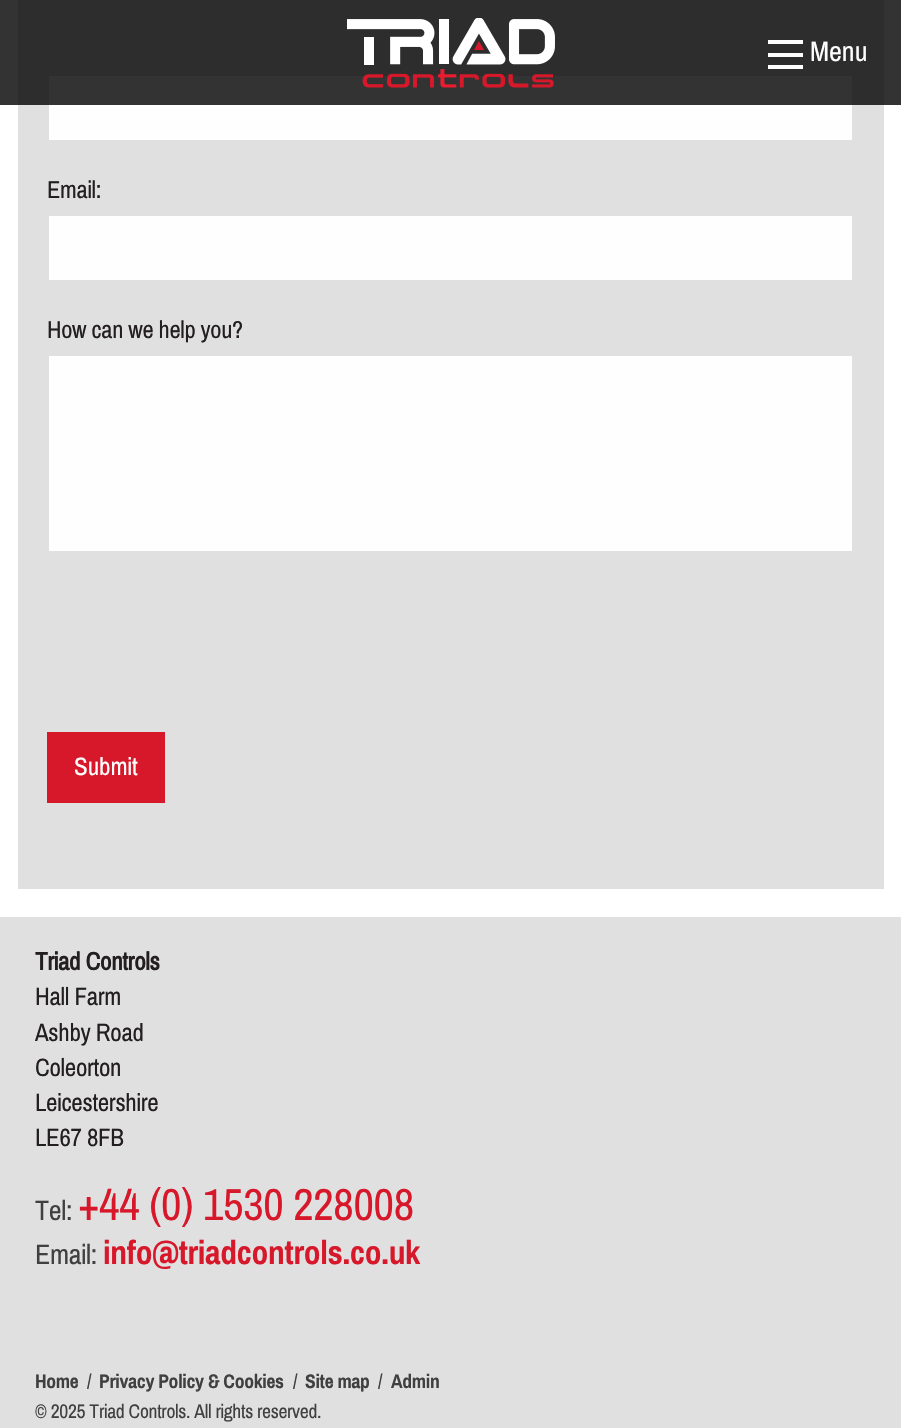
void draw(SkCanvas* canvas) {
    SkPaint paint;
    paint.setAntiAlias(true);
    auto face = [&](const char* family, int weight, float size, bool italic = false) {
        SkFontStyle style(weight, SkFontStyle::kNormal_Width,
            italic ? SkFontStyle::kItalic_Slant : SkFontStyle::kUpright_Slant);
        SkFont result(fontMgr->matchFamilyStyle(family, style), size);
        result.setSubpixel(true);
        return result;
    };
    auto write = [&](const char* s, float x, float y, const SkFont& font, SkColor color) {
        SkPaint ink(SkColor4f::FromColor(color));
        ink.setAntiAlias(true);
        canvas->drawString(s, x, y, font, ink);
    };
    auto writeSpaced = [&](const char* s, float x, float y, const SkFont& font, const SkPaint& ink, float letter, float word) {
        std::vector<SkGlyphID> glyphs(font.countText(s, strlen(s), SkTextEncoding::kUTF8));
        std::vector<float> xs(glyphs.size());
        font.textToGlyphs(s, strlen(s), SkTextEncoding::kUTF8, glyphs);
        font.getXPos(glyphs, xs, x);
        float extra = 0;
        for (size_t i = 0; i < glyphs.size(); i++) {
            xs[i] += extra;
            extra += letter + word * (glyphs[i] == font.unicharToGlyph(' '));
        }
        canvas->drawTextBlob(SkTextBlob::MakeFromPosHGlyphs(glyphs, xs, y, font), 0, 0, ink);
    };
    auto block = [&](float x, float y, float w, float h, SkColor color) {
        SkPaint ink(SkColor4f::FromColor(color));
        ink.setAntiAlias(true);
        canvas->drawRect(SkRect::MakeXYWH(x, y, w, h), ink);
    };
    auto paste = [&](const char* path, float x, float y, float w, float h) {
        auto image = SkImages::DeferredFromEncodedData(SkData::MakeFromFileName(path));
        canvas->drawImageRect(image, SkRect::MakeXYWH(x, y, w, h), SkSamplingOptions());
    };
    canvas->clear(SK_ColorWHITE);
    block(18, 0, 866, 889, SkColorSetRGB(224, 224, 224));
    block(49, 76, 803, 64, SkColorSetRGB(254, 254, 254));
    block(0, 0, 901, 105, SkColorSetARGB(204, 0, 0, 0));
    paste("pic1.png", 347, 18, 208, 70);
    block(768, 65, 35, 4, SkColorSetRGB(254, 254, 254));
    block(768, 53, 35, 4, SkColorSetRGB(254, 254, 254));
    block(768, 40, 35, 4, SkColorSetRGB(254, 254, 254));
    auto kFont1 = face("Archivo Narrow", 400, 28);
    write("Menu", 810, 61, kFont1, SkColorSetRGB(254, 254, 254));
    auto kFont2 = face("Archivo Narrow", 400, 24.5f);
    paint.setColor(SkColorSetRGB(35, 31, 32));
    writeSpaced("Email:", 47, 198, kFont2, paint, -0.3f, 0);
    block(49, 216, 803, 64, SkColorSetRGB(254, 254, 254));
    writeSpaced("How can we help you?", 47, 338, kFont2, paint, -0.3f, 0);
    block(49, 356, 803, 195, SkColorSetRGB(254, 254, 254));
    block(47, 732, 118, 71, SkColorSetRGB(215, 24, 42));
    auto kFont3 = face("Archivo Narrow", 400, 25);
    write("Submit", 74, 775, kFont3, SkColorSetRGB(254, 254, 254));
    block(0, 917, 901, 511, SkColorSetRGB(224, 224, 224));
    auto kFont4 = face("Archivo Narrow", 700, 25);
    writeSpaced("Triad Controls", 35, 970, kFont4, paint, -0.3f, 0);
    writeSpaced("Hall Farm", 35, 1005, kFont3, paint, -0.3f, 0);
    writeSpaced("Ashby Road", 35, 1041, kFont3, paint, -0.3f, 0);
    writeSpaced("Coleorton", 35, 1076, kFont3, paint, -0.3f, 0);
    writeSpaced("Leicestershire", 35, 1111, kFont3, paint, -0.3f, 0);
    writeSpaced("LE67 8FB", 35, 1146, kFont3, paint, -0.3f, 0);
    paint.setColor(SkColorSetRGB(64, 64, 64));
    writeSpaced("Tel:", 35, 1220, kFont1, paint, -0.3f, 0);
    auto kFont5 = face("Archivo Narrow", 400, 44.75f);
    paint.setColor(SkColorSetRGB(215, 24, 42));
    writeSpaced("+44 (0) 1530 228008", 78, 1220, kFont5, paint, -0.3f, 0);
    paint.setColor(SkColorSetRGB(64, 64, 64));
    writeSpaced("Email:", 35, 1264, kFont1, paint, -0.3f, 0);
    auto kFont6 = face("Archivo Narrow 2", 700, 33.5f);
    paint.setColor(SkColorSetRGB(215, 24, 42));
    writeSpaced("info@triadcontrols.co.uk", 103, 1264, kFont6, paint, -0.3f, 0);
    auto kFont7 = face("Archivo Narrow 2", 700, 19.6f);
    paint.setColor(SkColorSetRGB(64, 64, 64));
    writeSpaced("Home", 35, 1388, kFont7, paint, -0.3f, 0);
    auto kFont8 = face("Archivo Narrow", 400, 19.6f);
    writeSpaced("/", 87, 1388, kFont8, paint, -0.3f, 0);
    writeSpaced("Privacy Policy & Cookies", 99, 1388, kFont7, paint, -0.3f, 0);
    writeSpaced("/", 293, 1388, kFont8, paint, -0.3f, 0);
    writeSpaced("Site map", 305, 1388, kFont7, paint, -0.3f, 0);
    writeSpaced("/", 378, 1388, kFont8, paint, -0.3f, 0);
    writeSpaced("Admin", 391, 1388, kFont7, paint, -0.3f, 0);
    writeSpaced("© 2025 Triad Controls. All rights reserved.", 35, 1418, kFont8, paint, -0.3f, 0);
}
